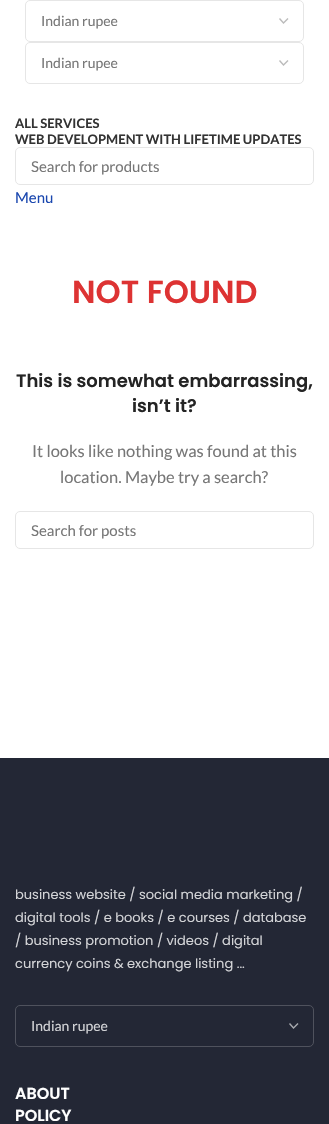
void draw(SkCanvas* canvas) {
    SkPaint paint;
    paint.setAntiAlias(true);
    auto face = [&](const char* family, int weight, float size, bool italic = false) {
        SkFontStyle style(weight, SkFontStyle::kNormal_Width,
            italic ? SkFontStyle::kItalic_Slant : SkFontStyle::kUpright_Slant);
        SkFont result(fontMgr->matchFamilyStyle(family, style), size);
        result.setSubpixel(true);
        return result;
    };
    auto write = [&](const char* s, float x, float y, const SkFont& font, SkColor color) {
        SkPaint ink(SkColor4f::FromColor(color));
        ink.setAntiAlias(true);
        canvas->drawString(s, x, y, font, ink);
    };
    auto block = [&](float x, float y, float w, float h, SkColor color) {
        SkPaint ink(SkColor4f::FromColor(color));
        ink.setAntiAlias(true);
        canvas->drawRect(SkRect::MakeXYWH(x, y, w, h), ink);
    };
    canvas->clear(SK_ColorWHITE);
    paint.setStyle(SkPaint::kStroke_Style);
    paint.setStrokeWidth(1.4f);
    paint.setColor(SkColorSetRGB(187, 187, 187));
    canvas->drawPath(SkPathBuilder().moveTo(279.5f, 18.5f).lineTo(283.5f, 23).lineTo(288, 18.5f).detach(), paint);
    paint.setStrokeWidth(1);
    paint.setColor(SkColorSetRGB(230, 230, 230));
    canvas->drawRoundRect(SkRect::MakeXYWH(25.5f, 0.5f, 278, 41), 4.5f, 4.5f, paint);
    auto kFont1 = face("Lato", 400, 14);
    write("Indian rupee", 41, 26, kFont1, SkColorSetRGB(119, 119, 119));
    paint.setStrokeWidth(1.4f);
    paint.setColor(SkColorSetRGB(187, 187, 187));
    canvas->drawPath(SkPathBuilder().moveTo(279.5f, 60.5f).lineTo(283.5f, 65).lineTo(288, 60.5f).detach(), paint);
    paint.setStrokeWidth(1);
    paint.setColor(SkColorSetRGB(230, 230, 230));
    canvas->drawRoundRect(SkRect::MakeXYWH(25.5f, 42.5f, 278, 41), 4.5f, 4.5f, paint);
    write("Indian rupee", 41, 68, kFont1, SkColorSetRGB(119, 119, 119));
    auto kFont2 = face("Lato", 700, 13);
    write("ALL SERVICES", 15, 128, kFont2, SkColorSetRGB(51, 51, 51));
    write("WEB DEVELOPMENT WITH LIFETIME UPDATES", 15, 144, kFont2, SkColorSetRGB(51, 51, 51));
    canvas->drawRoundRect(SkRect::MakeXYWH(15.5f, 147.5f, 298, 37), 4.5f, 4.5f, paint);
    auto kFont3 = face("Lato", 400, 15);
    write("Search for products", 31, 172, kFont3, SkColorSetRGB(119, 119, 119));
    write("Menu", 15, 203, kFont3, SkColorSetRGB(26, 71, 175));
    auto kFont4 = face("Poppins", 600, 32);
    write("NOT FOUND", 72, 303, kFont4, SkColorSetRGB(221, 51, 51));
    auto kFont5 = face("Poppins", 600, 18);
    write("This is somewhat embarrassing,", 16, 387, kFont5, SkColorSetRGB(36, 36, 36));
    write("isn’t it?", 132, 412, kFont5, SkColorSetRGB(36, 36, 36));
    auto kFont6 = face("Lato", 400, 16.5f);
    write("It looks like nothing was found at this", 32, 457, kFont6, SkColorSetRGB(119, 119, 119));
    write("location. Maybe try a search?", 60, 483, kFont6, SkColorSetRGB(119, 119, 119));
    canvas->drawRoundRect(SkRect::MakeXYWH(15.5f, 511.5f, 298, 37), 4.5f, 4.5f, paint);
    write("Search for posts", 31, 536, kFont3, SkColorSetRGB(119, 119, 119));
    block(0, 758, 329, 366, SkColorSetRGB(35, 39, 53));
    auto kFont7 = face("Poppins", 400, 13);
    write("business website / social media marketing /", 15, 899, kFont7, SkColorSetRGB(211, 212, 215));
    write("digital tools / e books / e courses / database", 15, 922, kFont7, SkColorSetRGB(211, 212, 215));
    write("/ business promotion / videos / digital", 15, 945, kFont7, SkColorSetRGB(211, 212, 215));
    write("currency coins & exchange listing ...", 15, 968, kFont7, SkColorSetRGB(211, 212, 215));
    paint.setStrokeWidth(1.4f);
    paint.setColor(SkColorSetRGB(167, 169, 174));
    canvas->drawPath(SkPathBuilder().moveTo(289.5f, 1023.5f).lineTo(293.5f, 1028).lineTo(298, 1023.5f).detach(), paint);
    paint.setStrokeWidth(1);
    paint.setColor(SkColorSetRGB(79, 82, 93));
    canvas->drawRoundRect(SkRect::MakeXYWH(15.5f, 1005.5f, 298, 41), 4.5f, 4.5f, paint);
    write("Indian rupee", 31, 1031, kFont1, SkColorSetRGB(211, 212, 215));
    auto kFont8 = face("Poppins", 600, 16);
    write("ABOUT", 15, 1099, kFont8, SK_ColorWHITE);
    write("POLICY", 15, 1121, kFont8, SK_ColorWHITE);
}
